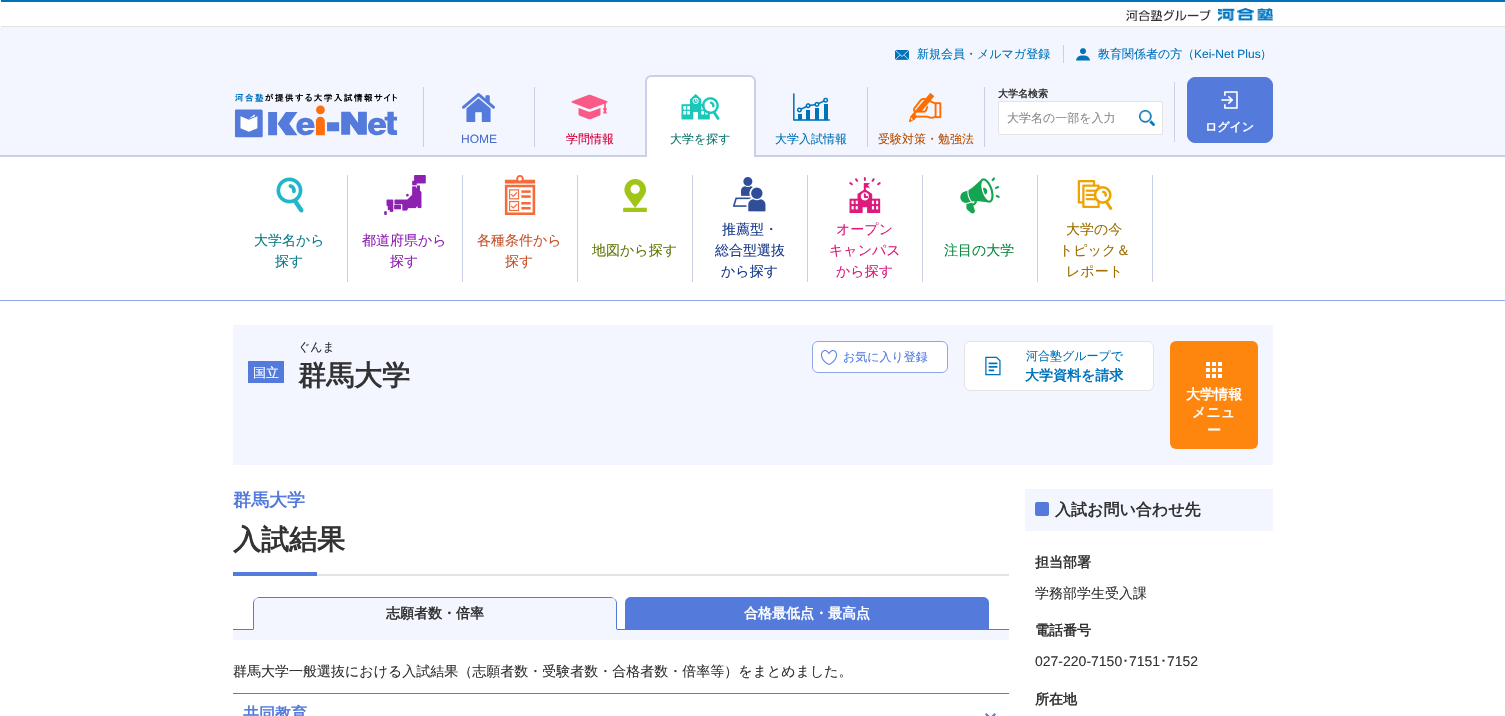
void draw(SkCanvas* canvas) {
    SkPaint paint;
    paint.setAntiAlias(true);
    auto face = [&](const char* family, int weight, float size, bool italic = false) {
        SkFontStyle style(weight, SkFontStyle::kNormal_Width,
            italic ? SkFontStyle::kItalic_Slant : SkFontStyle::kUpright_Slant);
        SkFont result(fontMgr->matchFamilyStyle(family, style), size);
        result.setSubpixel(true);
        return result;
    };
    auto write = [&](const char* s, float x, float y, const SkFont& font, SkColor color) {
        SkPaint ink(SkColor4f::FromColor(color));
        ink.setAntiAlias(true);
        canvas->drawString(s, x, y, font, ink);
    };
    auto block = [&](float x, float y, float w, float h, SkColor color) {
        SkPaint ink(SkColor4f::FromColor(color));
        ink.setAntiAlias(true);
        canvas->drawRect(SkRect::MakeXYWH(x, y, w, h), ink);
    };
    auto card = [&](float x, float y, float w, float h, float radius, SkColor color) {
        SkPaint ink(SkColor4f::FromColor(color));
        ink.setAntiAlias(true);
        canvas->drawRoundRect(SkRect::MakeXYWH(x, y, w, h), radius, radius, ink);
    };
    auto paste = [&](const char* path, float x, float y, float w, float h) {
        auto image = SkImages::DeferredFromEncodedData(SkData::MakeFromFileName(path));
        canvas->drawImageRect(image, SkRect::MakeXYWH(x, y, w, h), SkSamplingOptions());
    };
    canvas->clear(SK_ColorWHITE);
    block(1, 0, 1504, 2, SkColorSetRGB(0, 114, 186));
    block(1, 26, 1504, 1, SkColorSetRGB(228, 228, 228));
    paste("pic1.png", 1126, 9, 85, 12);
    paste("pic2.png", 1218, 8, 55, 13);
    block(0, 27, 1505, 128, SkColorSetRGB(243, 246, 255));
    block(0, 155, 1505, 2, SkColorSetRGB(201, 208, 232));
    paste("pic3.png", 895, 50, 14, 10);
    auto kFont1 = face("WenQuanYi Zen Hei", 500, 12);
    write("新規会員・メルマガ登録", 917, 58, kFont1, SkColorSetRGB(0, 114, 186));
    block(1063, 45, 1, 18, SkColorSetRGB(201, 208, 232));
    paste("pic4.png", 1076, 48, 14, 13);
    write("教育関係者の方（", 1098, 58, kFont1, SkColorSetRGB(0, 114, 186));
    auto kFont2 = face("Liberation Sans", 400, 12);
    write("Kei-Net Plus", 1194, 58, kFont2, SkColorSetRGB(0, 114, 186));
    write("）", 1260, 58, kFont1, SkColorSetRGB(0, 114, 186));
    auto kFont3 = face("WenQuanYi Zen Hei", 700, 10);
    write("大学名検索", 998, 97, kFont3, SkColorSetRGB(51, 51, 51));
    paint.setColor(SK_ColorWHITE);
    canvas->drawRoundRect(SkRect::MakeXYWH(998.5f, 101.5f, 164, 33), 1.5f, 1.5f, paint);
    paint.setStyle(SkPaint::kStroke_Style);
    paint.setStrokeWidth(1);
    paint.setColor(SkColorSetRGB(228, 228, 228));
    canvas->drawRoundRect(SkRect::MakeXYWH(998.5f, 101.5f, 164, 33), 1.5f, 1.5f, paint);
    write("大学名の一部を入力", 1007, 122, kFont1, SkColorSetRGB(136, 136, 136));
    paste("pic5.png", 1139, 110, 16, 16);
    block(1174, 82, 1, 60, SkColorSetRGB(201, 208, 232));
    paste("pic6.png", 234, 93, 163, 45);
    paint.setStyle(SkPaint::kFill_Style);
    paint.setColor(SkColorSetRGB(84, 123, 219));
    canvas->drawRoundRect(SkRect::MakeXYWH(1187.5f, 77.5f, 85, 65), 7.5f, 7.5f, paint);
    paint.setStyle(SkPaint::kStroke_Style);
    canvas->drawRoundRect(SkRect::MakeXYWH(1187.5f, 77.5f, 85, 65), 7.5f, 7.5f, paint);
    paste("pic7.png", 1221, 91, 17, 18);
    auto kFont4 = face("WenQuanYi Zen Hei", 700, 12);
    write("ログイン", 1205, 131, kFont4, SK_ColorWHITE);
    block(984, 87, 1, 60, SkColorSetRGB(201, 208, 232));
    block(867, 87, 1, 60, SkColorSetRGB(201, 208, 232));
    paste("pic8.png", 909, 93, 33, 29);
    write("受験対策・勉強法", 878, 143, kFont1, SkColorSetRGB(184, 78, 0));
    paint.setStyle(SkPaint::kFill_Style);
    paint.setColor(SK_ColorWHITE);
    canvas->drawPath(SkPathBuilder().moveTo(651, 75).lineTo(750, 75).cubicTo(753.5f, 75, 756, 77.5f, 756, 81).lineTo(756, 157).lineTo(645, 157).lineTo(645, 81).cubicTo(645, 77.5f, 647.5f, 75, 651, 75).close().detach(), paint);
    paint.setColor(SkColorSetRGB(201, 208, 232));
    canvas->drawPath(SkPathBuilder(SkPathFillType::kEvenOdd).moveTo(651, 75).lineTo(750, 75).cubicTo(753, 75, 756, 78, 756, 81).lineTo(756, 157).lineTo(645, 157).lineTo(645, 81).cubicTo(645, 78, 648, 75, 651, 75).close().moveTo(651, 77).lineTo(750, 77).cubicTo(752, 77, 754, 79, 754, 81).lineTo(754, 157).lineTo(647, 157).lineTo(647, 81).cubicTo(647, 79, 649, 77, 651, 77).close().detach(), paint);
    paste("pic9.png", 681, 94, 39, 26);
    write("大学を探す", 670, 143, kFont1, SkColorSetRGB(13, 117, 108));
    block(0, 300, 1505, 1, SkColorSetRGB(142, 168, 230));
    block(347, 175, 1, 107, SkColorSetRGB(201, 208, 232));
    paste("pic10.png", 276, 177, 28, 36);
    auto kFont5 = face("WenQuanYi Zen Hei", 500, 14);
    write("大学名から", 254, 245, kFont5, SkColorSetRGB(12, 124, 140));
    write("探す", 275, 266, kFont5, SkColorSetRGB(12, 124, 140));
    block(462, 175, 1, 107, SkColorSetRGB(201, 208, 232));
    paste("pic11.png", 384, 175, 42, 40);
    write("都道府県から", 362, 245, kFont5, SkColorSetRGB(141, 33, 176));
    write("探す", 390, 266, kFont5, SkColorSetRGB(141, 33, 176));
    block(577, 175, 1, 107, SkColorSetRGB(201, 208, 232));
    paste("pic12.png", 504, 175, 32, 40);
    write("各種条件から", 477, 245, kFont5, SkColorSetRGB(197, 81, 41));
    write("探す", 505, 266, kFont5, SkColorSetRGB(197, 81, 41));
    block(692, 175, 1, 107, SkColorSetRGB(201, 208, 232));
    paste("pic13.png", 623, 179, 24, 33);
    write("地図から探す", 592, 255, kFont5, SkColorSetRGB(97, 120, 8));
    block(807, 175, 1, 107, SkColorSetRGB(201, 208, 232));
    paste("pic14.png", 733, 177, 33, 35);
    write("推薦型・", 722, 234, kFont5, SkColorSetRGB(25, 59, 141));
    write("総合型選抜", 715, 255, kFont5, SkColorSetRGB(25, 59, 141));
    write("から探す", 721, 276, kFont5, SkColorSetRGB(25, 59, 141));
    block(922, 175, 1, 107, SkColorSetRGB(201, 208, 232));
    paste("pic15.png", 849, 177, 32, 36);
    write("オープン", 836, 234, kFont5, SkColorSetRGB(221, 27, 125));
    write("キャンパス", 829, 255, kFont5, SkColorSetRGB(221, 27, 125));
    write("から探す", 836, 276, kFont5, SkColorSetRGB(221, 27, 125));
    block(1037, 175, 1, 107, SkColorSetRGB(201, 208, 232));
    paste("pic16.png", 960, 177, 40, 37);
    write("注目の大学", 944, 255, kFont5, SkColorSetRGB(8, 135, 62));
    block(1152, 175, 1, 107, SkColorSetRGB(201, 208, 232));
    paste("pic17.png", 1077, 180, 36, 30);
    write("大学の今", 1066, 234, kFont5, SkColorSetRGB(159, 109, 0));
    write("トピック＆", 1059, 255, kFont5, SkColorSetRGB(159, 109, 0));
    write("レポート", 1066, 276, kFont5, SkColorSetRGB(159, 109, 0));
    block(423, 87, 1, 60, SkColorSetRGB(201, 208, 232));
    paste("pic18.png", 462, 93, 33, 29);
    write("HOME", 461, 143, kFont2, SkColorSetRGB(72, 110, 204));
    block(534, 87, 1, 60, SkColorSetRGB(201, 208, 232));
    paste("pic19.png", 571, 94, 37, 26);
    write("学問情報", 566, 143, kFont1, SkColorSetRGB(213, 0, 57));
    paste("pic20.png", 793, 93, 37, 28);
    write("大学入試情報", 775, 143, kFont1, SkColorSetRGB(0, 114, 186));
    block(233, 325, 1040, 140, SkColorSetRGB(243, 246, 255));
    block(248, 361, 36, 22, SkColorSetRGB(84, 123, 219));
    auto kFont6 = face("WenQuanYi Zen Hei", 500, 13);
    write("国立", 253, 377, kFont6, SK_ColorWHITE);
    write("ぐんま", 298, 351, kFont1, SkColorSetRGB(51, 51, 51));
    auto kFont7 = face("WenQuanYi Zen Hei", 700, 28);
    write("群馬大学", 298, 385, kFont7, SkColorSetRGB(51, 51, 51));
    card(812, 341, 136, 32, 6, SK_ColorWHITE);
    paste("pic21.png", 821, 350, 16, 15);
    paint.setStyle(SkPaint::kStroke_Style);
    paint.setColor(SkColorSetRGB(142, 168, 230));
    canvas->drawRoundRect(SkRect::MakeXYWH(812.5f, 341.5f, 135, 31), 5.5f, 5.5f, paint);
    write("お気に入り登録", 843, 361, kFont1, SkColorSetRGB(84, 123, 219));
    paint.setStyle(SkPaint::kFill_Style);
    paint.setColor(SK_ColorWHITE);
    canvas->drawRoundRect(SkRect::MakeXYWH(964.5f, 341.5f, 189, 49), 5.5f, 5.5f, paint);
    paint.setStyle(SkPaint::kStroke_Style);
    paint.setColor(SkColorSetRGB(228, 228, 228));
    canvas->drawRoundRect(SkRect::MakeXYWH(964.5f, 341.5f, 189, 49), 5.5f, 5.5f, paint);
    paste("pic22.png", 985, 356, 16, 20);
    write("河合塾グループで", 1026, 360, kFont1, SkColorSetRGB(0, 114, 186));
    auto kFont8 = face("WenQuanYi Zen Hei", 700, 14);
    write("大学資料を請求", 1025, 380, kFont8, SkColorSetRGB(0, 114, 186));
    card(1170, 341, 88, 108, 6, SkColorSetRGB(255, 134, 14));
    paste("pic23.png", 1206, 362, 16, 16);
    write("大学情報", 1186, 399, kFont8, SK_ColorWHITE);
    write("メニュ", 1192, 417, kFont8, SK_ColorWHITE);
    write("ー", 1207, 435, kFont8, SK_ColorWHITE);
    block(317, 574, 692, 2, SkColorSetRGB(228, 228, 228));
    auto kFont9 = face("WenQuanYi Zen Hei", 700, 18);
    write("群馬大学", 233, 506, kFont9, SkColorSetRGB(84, 123, 219));
    write("入試結果", 233, 549, kFont7, SkColorSetRGB(51, 51, 51));
    block(233, 572, 84, 4, SkColorSetRGB(84, 123, 219));
    block(233, 629, 776, 1, SkColorSetRGB(84, 123, 219));
    paint.setStyle(SkPaint::kFill_Style);
    paint.setColor(SkColorSetRGB(243, 246, 255));
    canvas->drawPath(SkPathBuilder().moveTo(259, 597).lineTo(611, 597).cubicTo(614.5f, 597, 617, 599.5f, 617, 603).lineTo(617, 630).lineTo(253, 630).lineTo(253, 603).cubicTo(253, 599.5f, 255.5f, 597, 259, 597).close().detach(), paint);
    paint.setColor(SkColorSetRGB(84, 123, 219));
    canvas->drawPath(SkPathBuilder().moveTo(259, 597).cubicTo(258, 597, 256, 598, 255, 599).cubicTo(256, 598, 258, 598, 259, 598).lineTo(611, 598).cubicTo(612, 598, 614, 598, 615, 599).cubicTo(614, 598, 612, 597, 611, 597).close().detach(), paint);
    canvas->drawPath(SkPathBuilder().moveTo(617, 630).lineTo(617, 603).cubicTo(617, 601.5f, 616, 600, 615, 599).lineTo(614.5f, 599.5f).cubicTo(615.5f, 600, 616, 601.5f, 616, 603).lineTo(616, 629).close().detach(), paint);
    paint.setColor(SkColorSetRGB(243, 246, 255));
    canvas->drawPath(SkPathBuilder().moveTo(617, 630).lineTo(616, 629).lineTo(254, 629).lineTo(253, 630).close().detach(), paint);
    paint.setColor(SkColorSetRGB(84, 123, 219));
    canvas->drawPath(SkPathBuilder().moveTo(253, 630).lineTo(254, 629).lineTo(254, 603).cubicTo(254, 601.5f, 254.5f, 600, 255.5f, 599.5f).lineTo(255, 599).cubicTo(254, 600, 253, 601.5f, 253, 603).close().detach(), paint);
    write("志願者数・倍率", 386, 618, kFont8, SkColorSetRGB(51, 51, 51));
    canvas->drawPath(SkPathBuilder().moveTo(631, 597).lineTo(983, 597).cubicTo(986.5f, 597, 989, 599.5f, 989, 603).lineTo(989, 630).lineTo(625, 630).lineTo(625, 603).cubicTo(625, 599.5f, 627.5f, 597, 631, 597).close().detach(), paint);
    write("合格最低点・最高点", 744, 618, kFont8, SK_ColorWHITE);
    block(233, 630, 776, 10, SkColorSetRGB(243, 246, 255));
    write("群馬大学一般選抜における入試結果（志願者数・受験者数・合格者数・倍率等）をまとめました。", 233, 676, kFont5, SkColorSetRGB(51, 51, 51));
    block(233, 693, 776, 1, SkColorSetRGB(84, 123, 219));
    auto kFont10 = face("WenQuanYi Zen Hei", 700, 16);
    write("共同教育", 243, 719, kFont10, SkColorSetRGB(84, 123, 219));
    canvas->drawPath(SkPathBuilder().moveTo(996, 714.5f).lineTo(990.5f, 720).lineTo(989, 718.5f).lineTo(994.5f, 713).close().moveTo(992, 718.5f).lineTo(990.5f, 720).lineTo(985, 714.5f).lineTo(986.5f, 713).close().detach(), paint);
    block(1025, 489, 248, 42, SkColorSetRGB(243, 246, 255));
    card(1035, 502, 14, 14, 2, SkColorSetRGB(84, 123, 219));
    write("入試お問い合わせ先", 1055, 515, kFont10, SkColorSetRGB(51, 51, 51));
    write("担当部署", 1035, 567, kFont8, SkColorSetRGB(51, 51, 51));
    write("学務部学生受入課", 1035, 598, kFont5, SkColorSetRGB(51, 51, 51));
    write("電話番号", 1035, 635, kFont8, SkColorSetRGB(51, 51, 51));
    auto kFont11 = face("Liberation Sans", 400, 14);
    write("027-220-7150", 1035, 666, kFont11, SkColorSetRGB(51, 51, 51));
    auto kFont12 = face("IPAPGothic", 400, 14);
    write("･", 1122, 666, kFont12, SkColorSetRGB(51, 51, 51));
    write("7151", 1129, 666, kFont11, SkColorSetRGB(51, 51, 51));
    write("･", 1160, 666, kFont12, SkColorSetRGB(51, 51, 51));
    write("7152", 1167, 666, kFont11, SkColorSetRGB(51, 51, 51));
    write("所在地", 1035, 704, kFont8, SkColorSetRGB(51, 51, 51));
}
